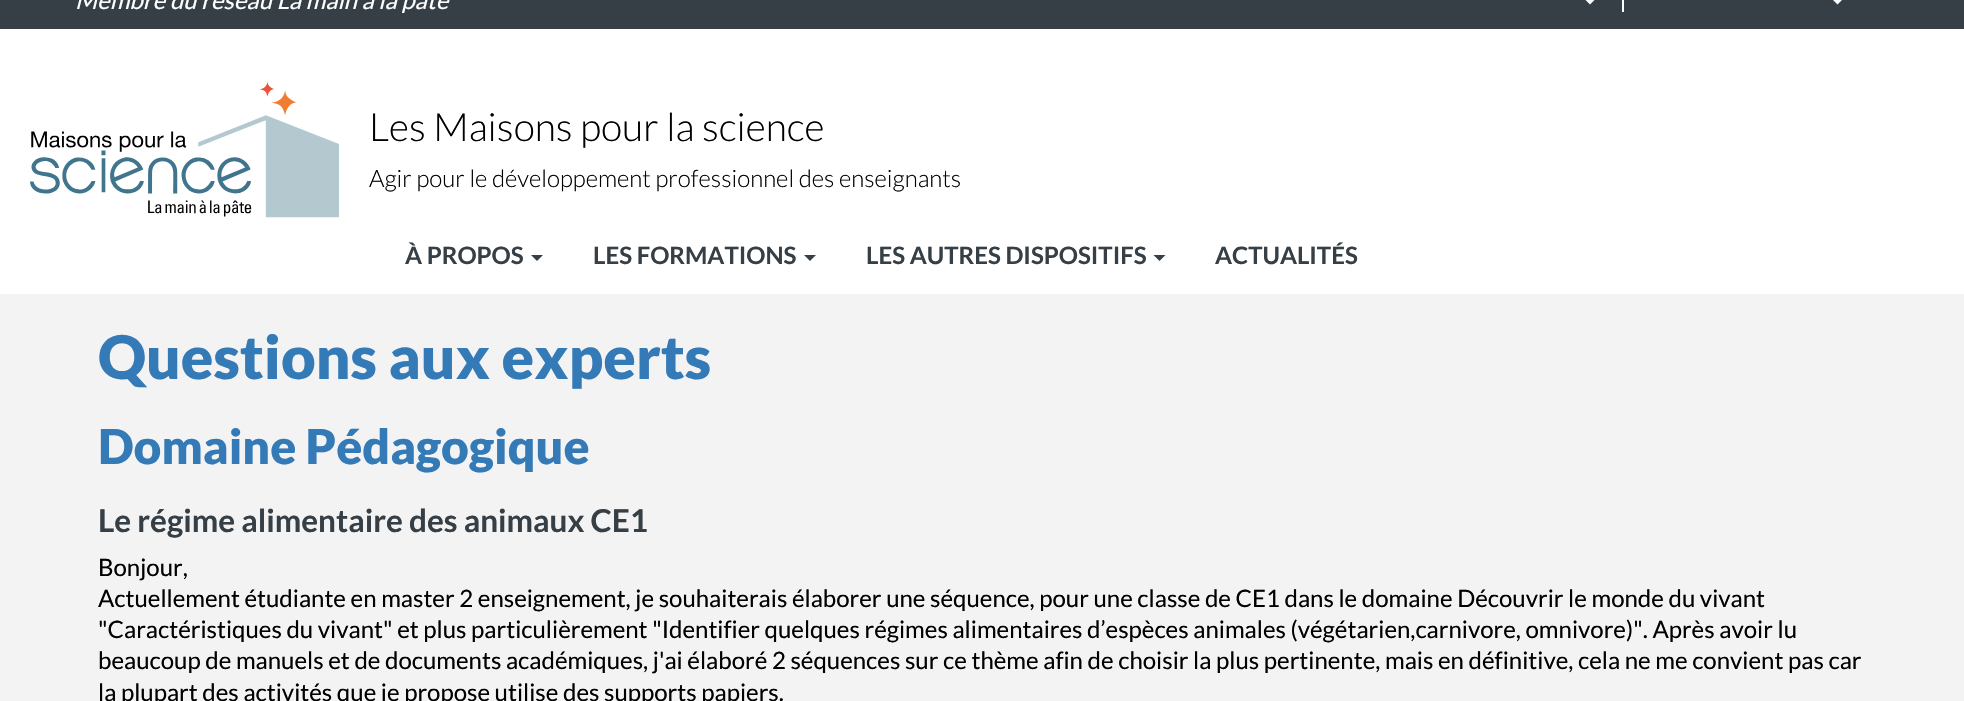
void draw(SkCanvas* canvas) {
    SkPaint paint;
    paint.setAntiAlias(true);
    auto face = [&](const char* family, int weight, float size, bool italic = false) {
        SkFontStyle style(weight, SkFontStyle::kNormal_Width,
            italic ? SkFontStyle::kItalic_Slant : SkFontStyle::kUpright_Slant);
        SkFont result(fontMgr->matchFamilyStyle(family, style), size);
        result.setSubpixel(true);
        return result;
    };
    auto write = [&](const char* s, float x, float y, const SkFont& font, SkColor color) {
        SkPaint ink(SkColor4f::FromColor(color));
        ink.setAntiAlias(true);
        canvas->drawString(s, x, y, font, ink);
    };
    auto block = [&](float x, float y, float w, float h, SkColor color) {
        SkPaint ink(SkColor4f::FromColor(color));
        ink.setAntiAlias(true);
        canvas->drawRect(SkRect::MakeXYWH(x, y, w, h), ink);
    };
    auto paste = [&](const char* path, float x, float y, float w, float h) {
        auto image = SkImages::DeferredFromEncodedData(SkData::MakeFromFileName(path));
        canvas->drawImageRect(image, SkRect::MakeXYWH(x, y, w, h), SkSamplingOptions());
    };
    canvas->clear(SK_ColorWHITE);
    block(0, 0, 1964, 29, SkColorSetRGB(53, 63, 69));
    auto kFont1 = face("Lato", 400, 24, true);
    write("Membre du réseau La main à la pâte", 75, 9, kFont1, SK_ColorWHITE);
    block(1622, 0, 2, 12, SK_ColorWHITE);
    paint.setColor(SK_ColorWHITE);
    canvas->drawPath(SkPathBuilder().moveTo(1584, -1.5f).lineTo(1596, -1.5f).lineTo(1590, 4.5f).close().detach(), paint);
    canvas->drawPath(SkPathBuilder().moveTo(1831.5f, -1.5f).lineTo(1843.5f, -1.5f).lineTo(1837.5f, 4.5f).close().detach(), paint);
    paste("pic1.png", 30, 81, 309, 137);
    auto kFont2 = face("Lato", 300, 39);
    write("Les Maisons pour la science", 369, 141, kFont2, SK_ColorBLACK);
    auto kFont3 = face("Lato", 300, 24);
    write("Agir pour le développement professionnel des enseignants", 369, 187, kFont3, SK_ColorBLACK);
    auto kFont4 = face("Lato", 700, 24);
    write("À PROPOS", 405, 264, kFont4, SkColorSetRGB(53, 63, 69));
    paint.setColor(SkColorSetRGB(53, 63, 69));
    canvas->drawPath(SkPathBuilder().moveTo(531, 255).lineTo(543, 255).lineTo(537, 261).close().detach(), paint);
    write("LES FORMATIONS", 593, 264, kFont4, SkColorSetRGB(53, 63, 69));
    canvas->drawPath(SkPathBuilder().moveTo(804, 255).lineTo(816, 255).lineTo(810, 261).close().detach(), paint);
    write("LES AUTRES DISPOSITIFS", 866, 264, kFont4, SkColorSetRGB(53, 63, 69));
    canvas->drawPath(SkPathBuilder().moveTo(1153.5f, 255).lineTo(1165.5f, 255).lineTo(1159.5f, 261).close().detach(), paint);
    write("ACTUALITÉS", 1215, 264, kFont4, SkColorSetRGB(53, 63, 69));
    block(0, 294, 1964, 407, SkColorSetRGB(243, 243, 243));
    auto kFont5 = face("Lato", 900, 60);
    write("Questions aux experts", 98, 379, kFont5, SkColorSetRGB(51, 122, 183));
    auto kFont6 = face("Lato", 900, 48);
    write("Domaine Pédagogique", 98, 464, kFont6, SkColorSetRGB(51, 122, 183));
    auto kFont7 = face("Lato", 700, 31.5f);
    write("Le régime alimentaire des animaux CE1", 98, 532, kFont7, SkColorSetRGB(53, 63, 69));
    auto kFont8 = face("Lato", 400, 24);
    write("Bonjour,", 98, 576, kFont8, SK_ColorBLACK);
    write("Actuellement étudiante en master 2 enseignement, je souhaiterais élaborer une séquence, pour une classe de CE1 dans le domaine Découvrir le monde du vivant", 98, 607, kFont8, SK_ColorBLACK);
    write("\"Caractéristiques du vivant\" et plus particulièrement \"Identifier quelques régimes alimentaires d’espèces animales (végétarien,carnivore, omnivore)\". Après avoir lu", 98, 638, kFont8, SK_ColorBLACK);
    write("beaucoup de manuels et de documents académiques, j'ai élaboré 2 séquences sur ce thème afin de choisir la plus pertinente, mais en définitive, cela ne me convient pas car", 98, 669, kFont8, SK_ColorBLACK);
    write("la plupart des activités que je propose utilise des supports papiers.", 98, 701, kFont8, SK_ColorBLACK);
}
